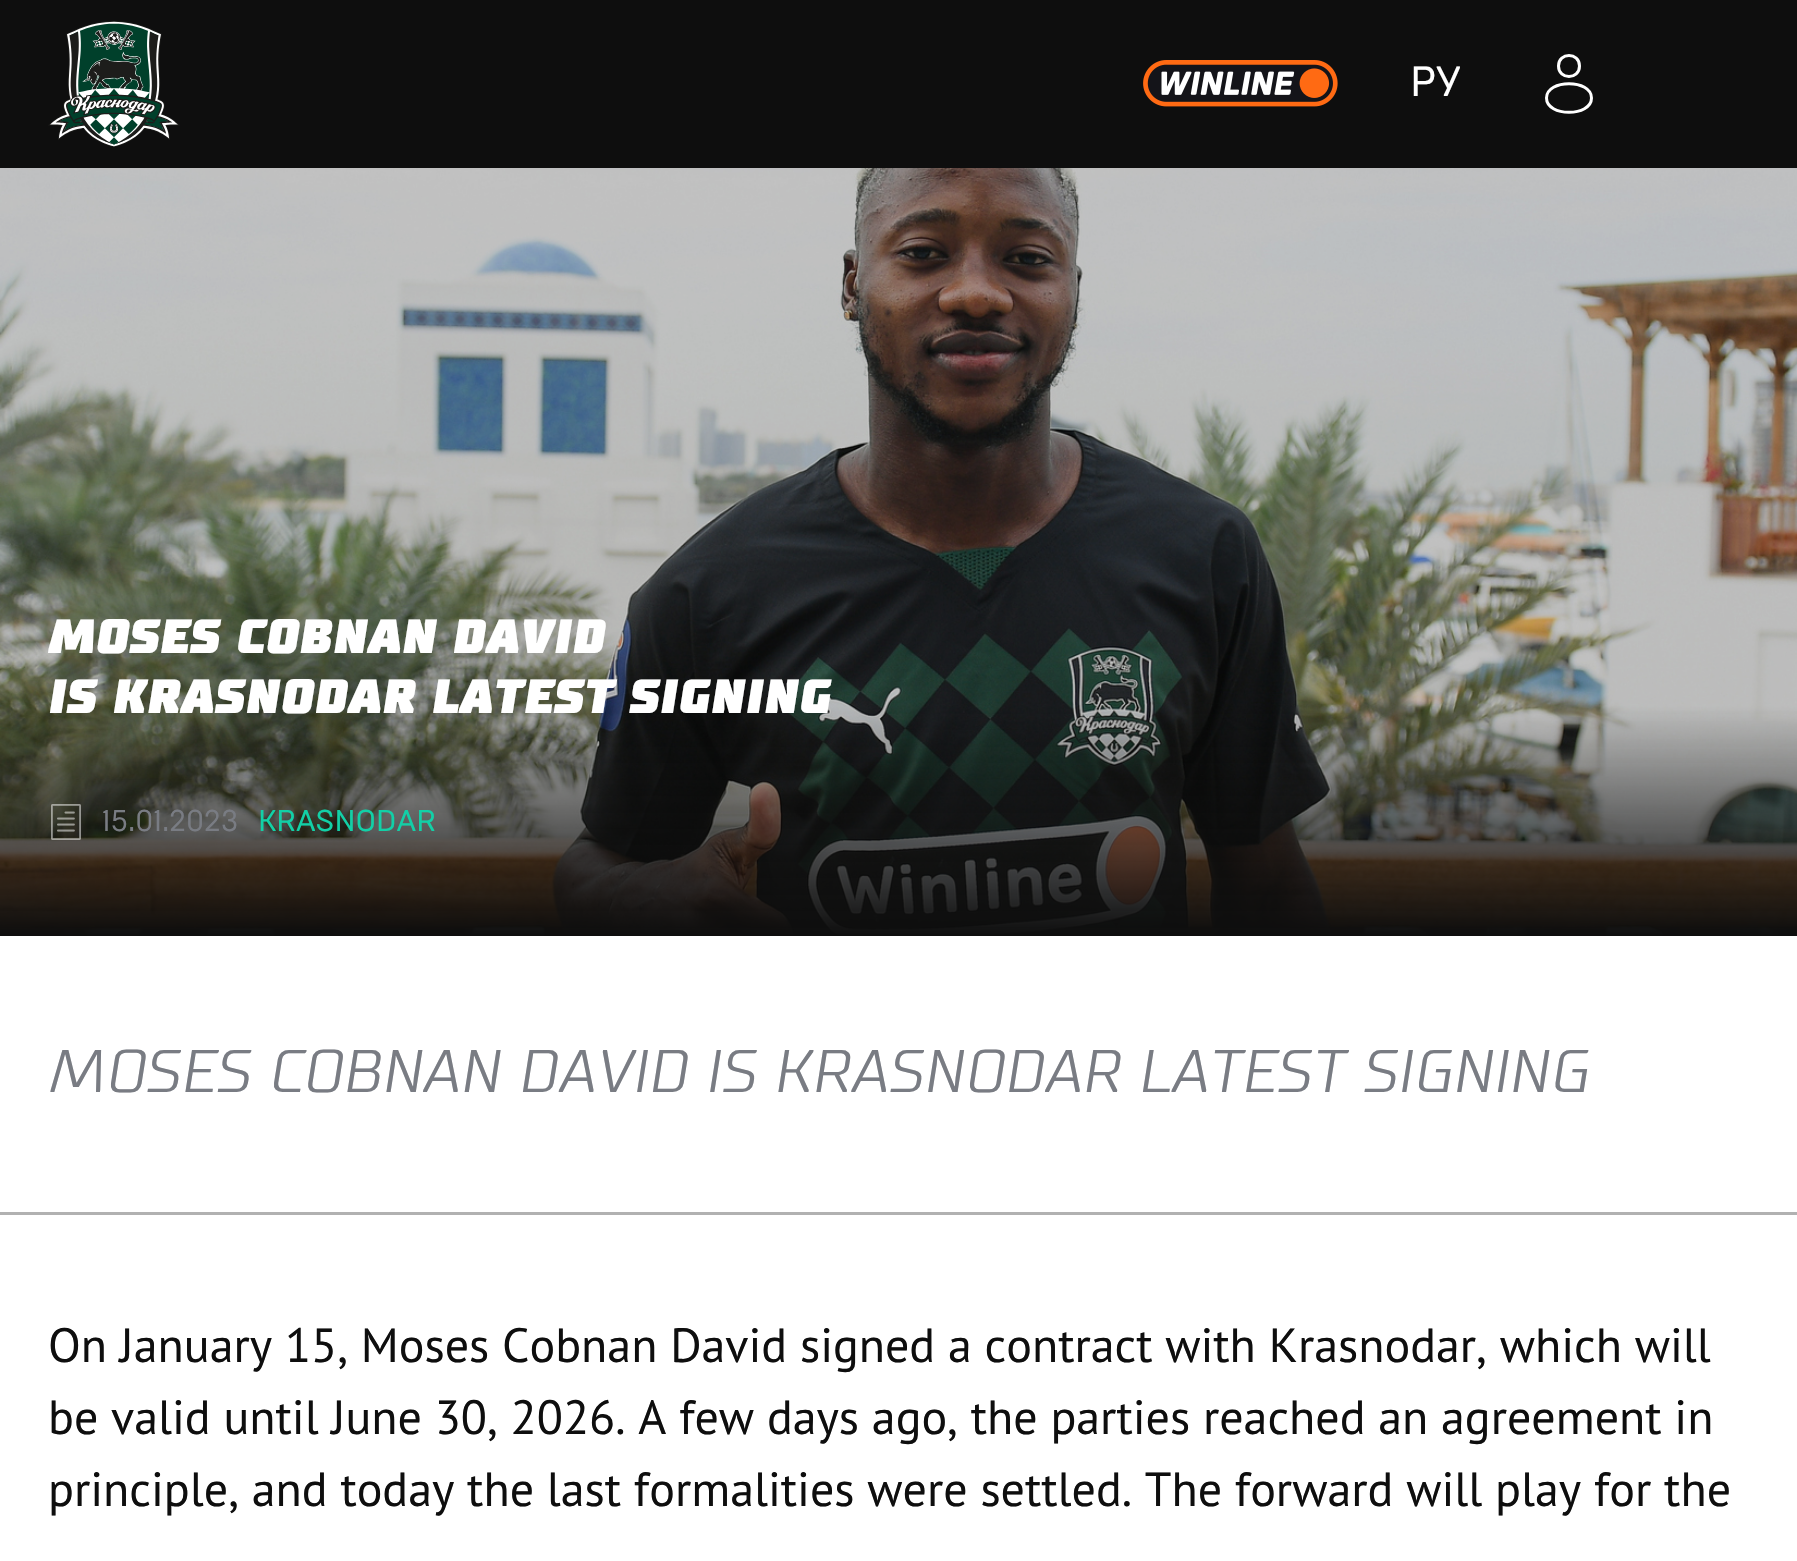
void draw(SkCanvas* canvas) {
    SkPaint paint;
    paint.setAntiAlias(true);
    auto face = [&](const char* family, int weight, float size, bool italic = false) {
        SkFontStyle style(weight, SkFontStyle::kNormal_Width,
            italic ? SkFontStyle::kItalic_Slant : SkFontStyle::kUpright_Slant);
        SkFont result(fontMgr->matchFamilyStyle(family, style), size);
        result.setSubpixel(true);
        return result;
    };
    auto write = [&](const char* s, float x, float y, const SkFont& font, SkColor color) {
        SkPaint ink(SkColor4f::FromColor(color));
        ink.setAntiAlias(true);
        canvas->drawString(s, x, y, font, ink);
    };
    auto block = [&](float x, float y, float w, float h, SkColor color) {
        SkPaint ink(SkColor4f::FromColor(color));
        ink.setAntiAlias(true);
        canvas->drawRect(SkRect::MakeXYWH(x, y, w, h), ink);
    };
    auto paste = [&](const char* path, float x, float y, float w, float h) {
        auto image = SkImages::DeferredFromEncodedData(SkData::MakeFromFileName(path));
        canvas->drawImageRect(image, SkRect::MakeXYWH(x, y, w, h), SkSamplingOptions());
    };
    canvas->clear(SkColorSetRGB(14, 14, 14));
    paste("pic1.png", 48, 21, 132, 126);
    paste("pic2.png", 1143, 60, 195, 47);
    auto kFont1 = face("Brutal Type", 400, 42);
    write("РУ", 1410, 96, kFont1, SK_ColorWHITE);
    paint.setStyle(SkPaint::kStroke_Style);
    paint.setStrokeWidth(3);
    paint.setColor(SK_ColorWHITE);
    canvas->drawPath(SkPathBuilder().moveTo(1579.5f, 66).cubicTo(1579.5f, 80, 1558.5f, 80, 1558.5f, 66).cubicTo(1558.5f, 52, 1579.5f, 52, 1579.5f, 66).close().moveTo(1591.5f, 98).cubicTo(1591.5f, 117, 1546.5f, 117, 1546.5f, 98).cubicTo(1546.5f, 79, 1591.5f, 79, 1591.5f, 98).close().detach(), paint);
    paste("pic3.png", 0, 168, 1797, 768);
    auto kFont2 = face("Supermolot", 900, 48, true);
    write("MOSES COBNAN DAVID", 48, 653, kFont2, SK_ColorWHITE);
    write("IS KRASNODAR LATEST SIGNING", 48, 713, kFont2, SK_ColorWHITE);
    paste("pic4.png", 51, 804, 30, 36);
    auto kFont3 = face("Brutal Type", 400, 30);
    write("15.01.2023", 102, 831, kFont3, SkColorSetRGB(121, 124, 131));
    write("KRASNODAR", 258, 831, kFont3, SkColorSetRGB(18, 208, 167));
    block(0, 936, 1797, 625, SK_ColorWHITE);
    block(0, 1212, 1797, 3, SkColorSetRGB(177, 177, 177));
    auto kFont4 = face("Supermolot", 300, 60, true);
    write("MOSES COBNAN DAVID IS KRASNODAR LATEST SIGNING", 48, 1092, kFont4, SkColorSetRGB(121, 124, 131));
    auto kFont5 = face("PT Sans", 400, 48);
    write("On January 15, Moses Cobnan David signed a contract with Krasnodar, which will", 48, 1362, kFont5, SkColorSetRGB(14, 14, 14));
    write("be valid until June 30, 2026. A few days ago, the parties reached an agreement in", 48, 1434, kFont5, SkColorSetRGB(14, 14, 14));
    write("principle, and today the last formalities were settled. The forward will play for the", 48, 1506, kFont5, SkColorSetRGB(14, 14, 14));
}
